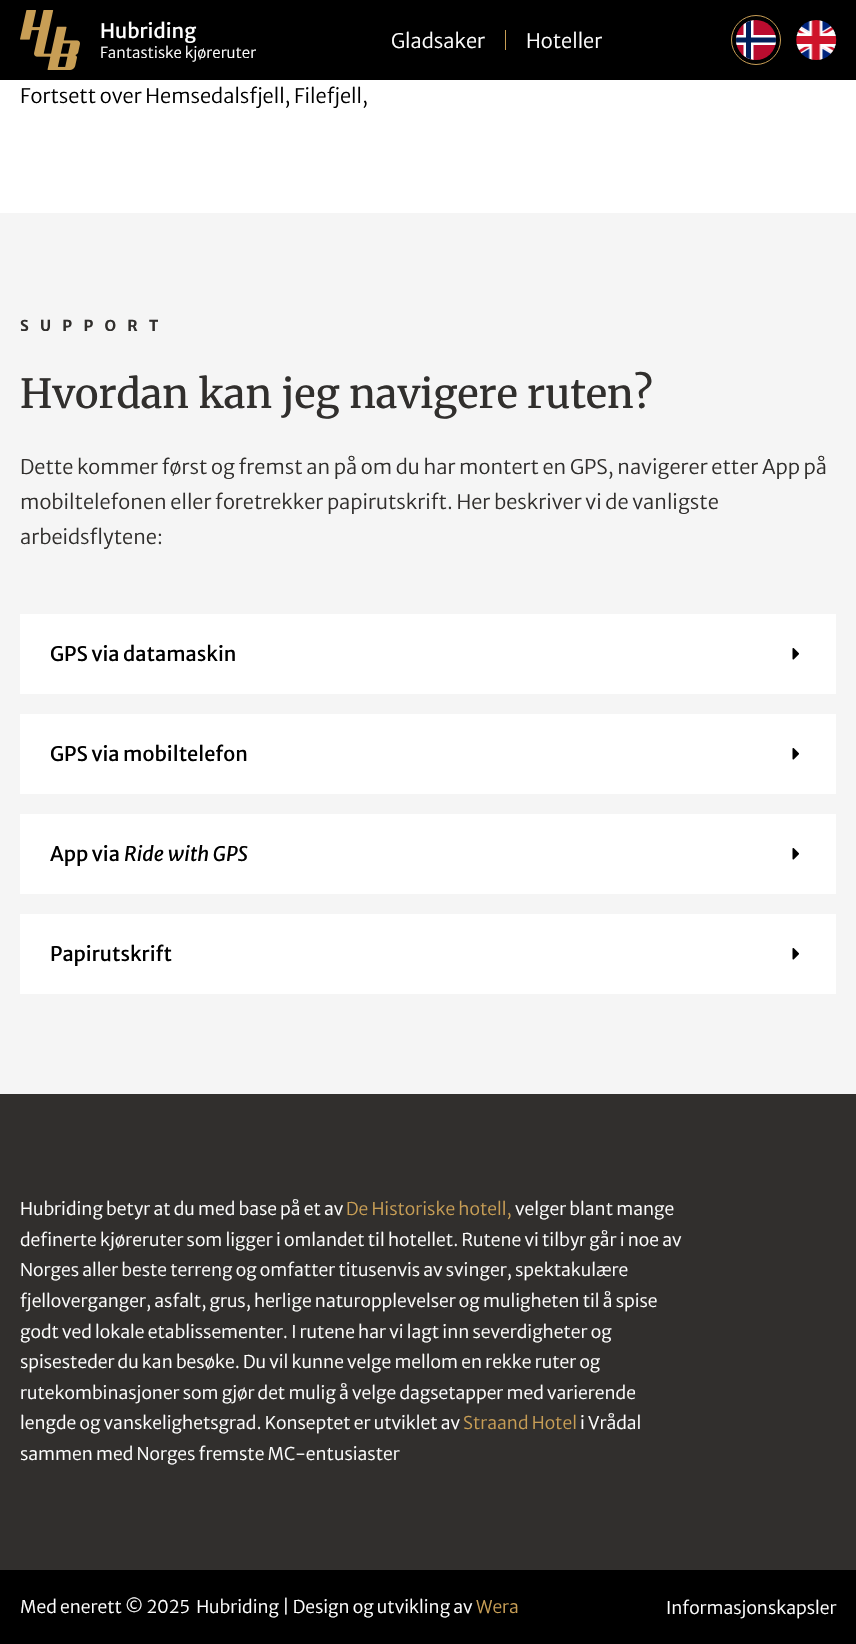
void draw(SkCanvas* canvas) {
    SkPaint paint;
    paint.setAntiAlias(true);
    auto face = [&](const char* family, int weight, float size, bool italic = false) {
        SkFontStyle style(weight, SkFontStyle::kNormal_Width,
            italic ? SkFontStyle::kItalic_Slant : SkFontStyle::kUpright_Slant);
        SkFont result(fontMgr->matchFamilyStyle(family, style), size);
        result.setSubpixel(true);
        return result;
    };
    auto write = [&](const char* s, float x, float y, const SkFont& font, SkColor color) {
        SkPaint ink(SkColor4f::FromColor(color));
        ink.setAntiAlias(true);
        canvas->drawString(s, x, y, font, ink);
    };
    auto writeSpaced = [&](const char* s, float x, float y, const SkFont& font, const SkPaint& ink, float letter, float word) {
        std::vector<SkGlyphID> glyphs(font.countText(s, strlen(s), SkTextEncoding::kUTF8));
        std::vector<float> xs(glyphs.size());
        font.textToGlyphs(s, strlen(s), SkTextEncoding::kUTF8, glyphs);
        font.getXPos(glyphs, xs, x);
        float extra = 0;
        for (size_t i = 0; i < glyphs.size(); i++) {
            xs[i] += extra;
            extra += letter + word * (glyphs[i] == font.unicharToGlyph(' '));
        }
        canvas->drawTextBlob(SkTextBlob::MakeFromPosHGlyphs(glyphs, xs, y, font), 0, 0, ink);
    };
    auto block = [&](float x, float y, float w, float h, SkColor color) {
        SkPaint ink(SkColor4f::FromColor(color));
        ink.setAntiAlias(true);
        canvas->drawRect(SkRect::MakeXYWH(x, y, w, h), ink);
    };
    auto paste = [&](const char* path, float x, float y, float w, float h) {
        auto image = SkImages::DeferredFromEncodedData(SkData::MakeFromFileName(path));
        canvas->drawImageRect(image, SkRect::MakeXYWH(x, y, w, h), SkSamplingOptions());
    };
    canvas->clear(SkColorSetRGB(245, 245, 245));
    block(0, 0, 856, 80, SK_ColorBLACK);
    paste("pic1.png", 20, 10, 60, 60);
    auto kFont1 = face("Merriweather Sans", 400, 20);
    write("Hubriding", 100, 38, kFont1, SK_ColorWHITE);
    auto kFont2 = face("Merriweather Sans", 300, 15);
    write("Fantastiske kjøreruter", 100, 58, kFont2, SK_ColorWHITE);
    auto kFont3 = face("Merriweather Sans", 300, 20);
    write("Gladsaker", 391, 48, kFont3, SK_ColorWHITE);
    block(505, 30, 1, 20, SkColorSetRGB(200, 158, 85));
    write("Hoteller", 526, 48, kFont3, SK_ColorWHITE);
    paint.setColor(SkColorSetRGB(186, 12, 47));
    canvas->drawCircle(756, 40, 20, paint);
    canvas->save();
    canvas->clipPath(SkPathBuilder().moveTo(756, 20).cubicTo(767, 20, 776, 29, 776, 40).cubicTo(776, 51, 767, 60, 756, 60).cubicTo(745, 60, 736, 51, 736, 40).cubicTo(736, 29, 745, 20, 756, 20).close().detach(), true);
    paint.setStyle(SkPaint::kStroke_Style);
    paint.setStrokeWidth(10);
    paint.setColor(SK_ColorWHITE);
    canvas->drawPath(SkPathBuilder().moveTo(729, 40).lineTo(783.5f, 40).moveTo(748.5f, 20).lineTo(748.5f, 60).detach(), paint);
    paint.setStrokeWidth(5);
    paint.setColor(SkColorSetRGB(0, 32, 91));
    canvas->drawPath(SkPathBuilder().moveTo(729, 40).lineTo(783.5f, 40).moveTo(748.5f, 20).lineTo(748.5f, 60).detach(), paint);
    canvas->restore();
    paint.setStrokeWidth(1);
    paint.setColor(SkColorSetRGB(200, 158, 85));
    canvas->drawCircle(756, 40, 24.5f, paint);
    paste("pic2.png", 796, 20, 41, 40);
    block(0, 80, 856, 133, SK_ColorWHITE);
    write("Fortsett over Hemsedalsfjell, Filefjell,", 20, 103, kFont3, SK_ColorBLACK);
    auto kFont4 = face("Merriweather Sans", 700, 15);
    paint.setStyle(SkPaint::kFill_Style);
    paint.setColor(SkColorSetRGB(49, 47, 45));
    writeSpaced("SUPPORT", 20, 331, kFont4, paint, 11.25f, 0);
    auto kFont5 = face("Merriweather", 500, 40);
    write("Hvordan kan jeg navigere ruten?", 20, 408, kFont5, SkColorSetRGB(49, 47, 45));
    write("Dette kommer først og fremst an på om du har montert en GPS, navigerer etter App på", 20, 474, kFont3, SkColorSetRGB(49, 47, 45));
    write("mobiltelefonen eller foretrekker papirutskrift. Her beskriver vi de vanligste", 20, 509, kFont3, SkColorSetRGB(49, 47, 45));
    write("arbeidsflytene:", 20, 544, kFont3, SkColorSetRGB(49, 47, 45));
    block(20, 614, 816, 80, SK_ColorWHITE);
    write("GPS via datamaskin", 50, 661, kFont1, SK_ColorBLACK);
    paste("pic3.png", 792, 648, 7, 12);
    block(20, 714, 816, 80, SK_ColorWHITE);
    write("GPS via mobiltelefon", 50, 761, kFont1, SK_ColorBLACK);
    paste("pic3.png", 792, 748, 7, 12);
    block(20, 814, 816, 80, SK_ColorWHITE);
    write("App via", 50, 861, kFont1, SK_ColorBLACK);
    auto kFont6 = face("Merriweather Sans", 400, 20, true);
    write("Ride with GPS", 124, 861, kFont6, SK_ColorBLACK);
    paste("pic3.png", 792, 848, 7, 12);
    block(20, 914, 816, 80, SK_ColorWHITE);
    write("Papirutskrift", 50, 961, kFont1, SK_ColorBLACK);
    paste("pic3.png", 792, 948, 7, 12);
    block(0, 1094, 856, 476, SkColorSetRGB(49, 47, 45));
    auto kFont7 = face("Merriweather Sans", 300, 17.5f);
    write("Hubriding betyr at du med base på et av", 20, 1215, kFont7, SK_ColorWHITE);
    write("De Historiske hotell,", 346, 1215, kFont7, SkColorSetRGB(200, 158, 85));
    write("velger blant mange", 515, 1215, kFont7, SK_ColorWHITE);
    write("definerte kjøreruter som ligger i omlandet til hotellet. Rutene vi tilbyr går i noe av", 20, 1246, kFont7, SK_ColorWHITE);
    write("Norges aller beste terreng og omfatter titusenvis av svinger, spektakulære", 20, 1276, kFont7, SK_ColorWHITE);
    write("fjelloverganger, asfalt, grus, herlige naturopplevelser og muligheten til å spise", 20, 1307, kFont7, SK_ColorWHITE);
    write("godt ved lokale etablissementer. I rutene har vi lagt inn severdigheter og", 20, 1338, kFont7, SK_ColorWHITE);
    write("spisesteder du kan besøke. Du vil kunne velge mellom en rekke ruter og", 20, 1368, kFont7, SK_ColorWHITE);
    write("rutekombinasjoner som gjør det mulig å velge dagsetapper med varierende", 20, 1399, kFont7, SK_ColorWHITE);
    write("lengde og vanskelighetsgrad. Konseptet er utviklet av", 20, 1429, kFont7, SK_ColorWHITE);
    write("Straand Hotel", 463, 1429, kFont7, SkColorSetRGB(200, 158, 85));
    write("i Vrådal", 580, 1429, kFont7, SK_ColorWHITE);
    write("sammen med Norges fremste MC-entusiaster", 20, 1460, kFont7, SK_ColorWHITE);
    block(0, 1570, 856, 74, SK_ColorBLACK);
    write("Med enerett © 2025  Hubriding | Design og utvikling av", 20, 1613, kFont7, SK_ColorWHITE);
    write("Wera", 476, 1613, kFont7, SkColorSetRGB(200, 158, 85));
    write("Informasjonskapsler", 666, 1614, kFont7, SK_ColorWHITE);
}
